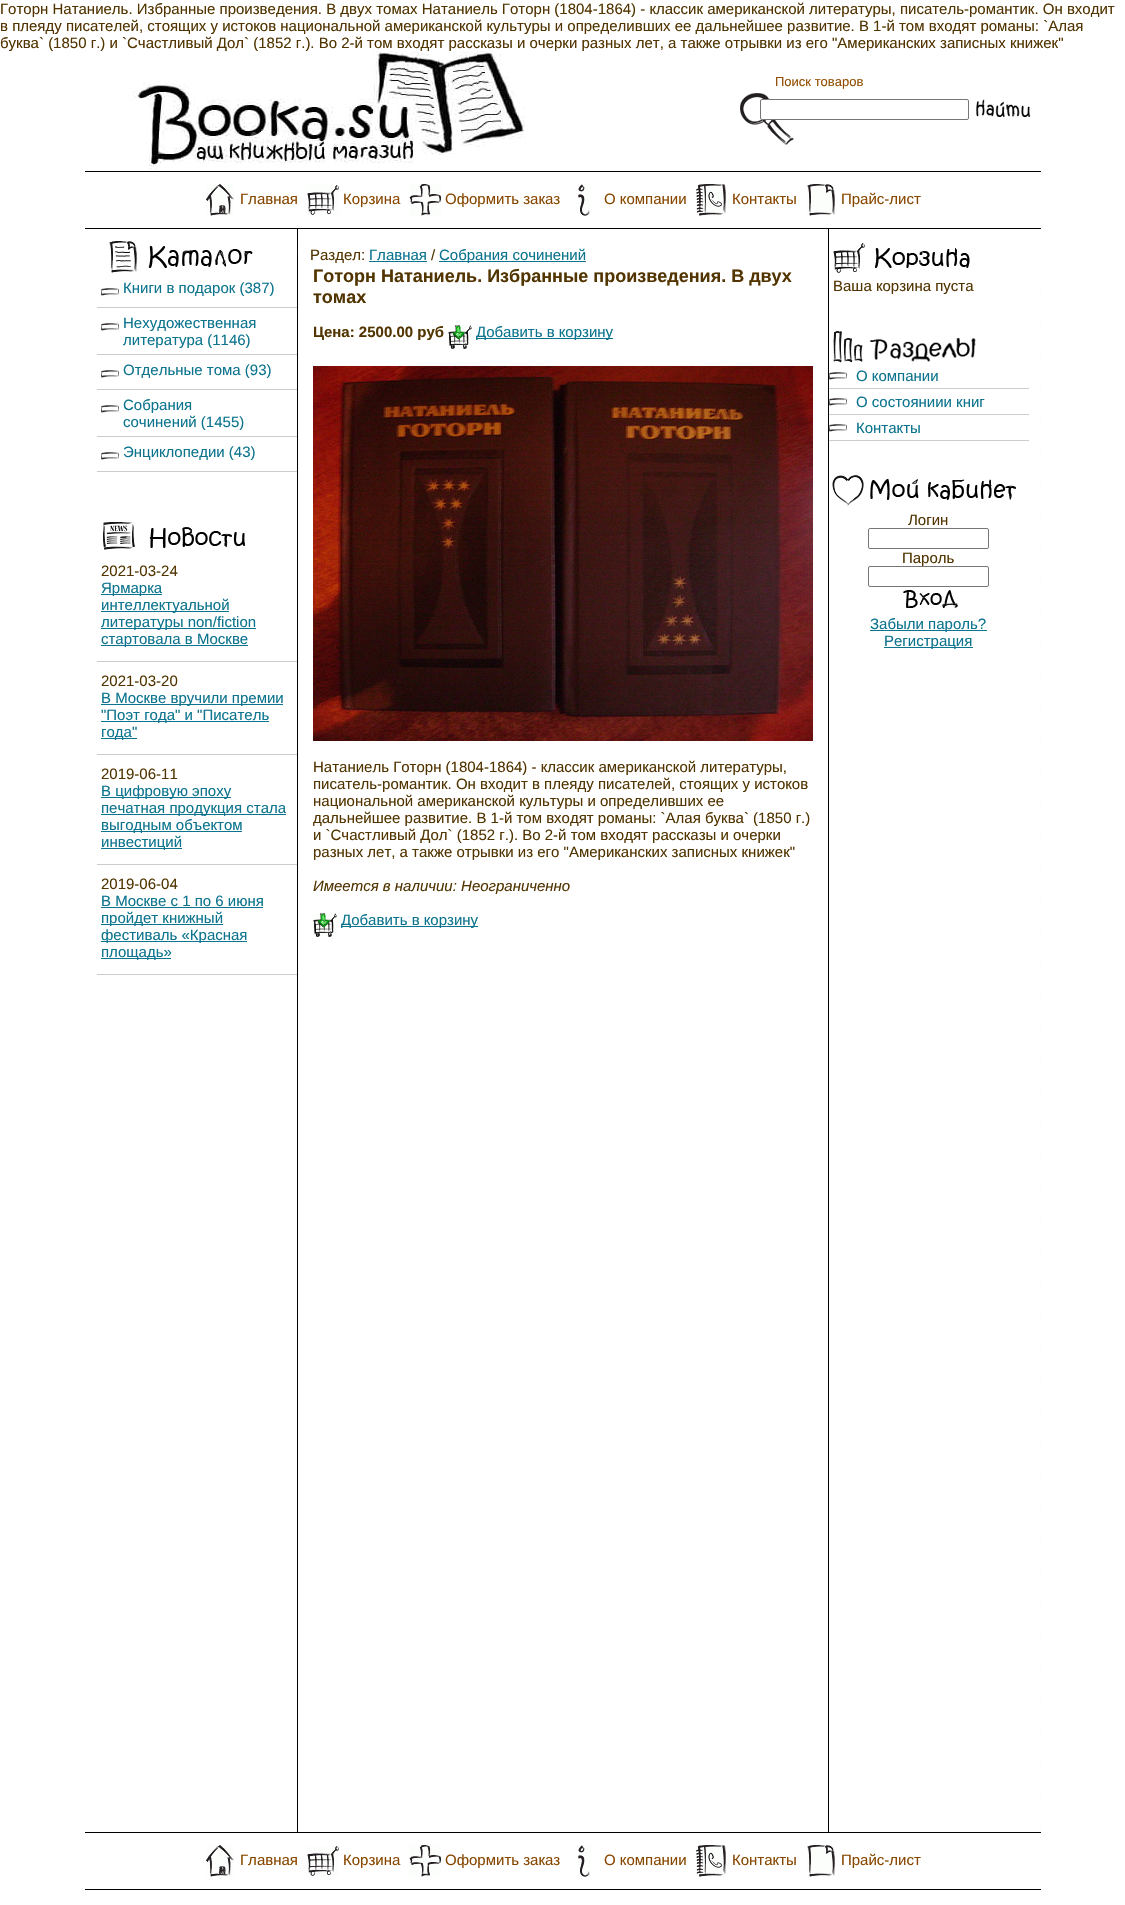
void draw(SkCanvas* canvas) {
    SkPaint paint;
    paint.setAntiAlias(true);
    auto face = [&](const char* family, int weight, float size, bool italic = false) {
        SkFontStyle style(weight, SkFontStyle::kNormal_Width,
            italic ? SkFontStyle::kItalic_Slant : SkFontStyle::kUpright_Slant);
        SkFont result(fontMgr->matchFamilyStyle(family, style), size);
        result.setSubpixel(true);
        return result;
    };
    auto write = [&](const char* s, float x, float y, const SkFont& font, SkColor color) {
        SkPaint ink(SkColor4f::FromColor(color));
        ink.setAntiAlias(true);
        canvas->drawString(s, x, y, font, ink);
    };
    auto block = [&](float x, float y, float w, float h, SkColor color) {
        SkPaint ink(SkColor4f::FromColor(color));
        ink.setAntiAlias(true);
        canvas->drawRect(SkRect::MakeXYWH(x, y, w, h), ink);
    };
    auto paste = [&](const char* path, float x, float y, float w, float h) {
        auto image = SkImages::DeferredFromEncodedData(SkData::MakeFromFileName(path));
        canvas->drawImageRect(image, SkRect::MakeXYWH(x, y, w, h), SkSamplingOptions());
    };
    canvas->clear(SK_ColorWHITE);
    auto kFont1 = face("Liberation Sans", 400, 15);
    write("Готорн Натаниель. Избранные произведения. В двух томах Натаниель Готорн (1804-1864) - классик американской литературы, писатель-романтик. Он входит", 0, 14, kFont1, SkColorSetRGB(81, 52, 0));
    write("в плеяду писателей, стоящих у истоков национальной американской культуры и определивших ее дальнейшее развитие. В 1-й том входят романы: `Алая", 0, 31, kFont1, SkColorSetRGB(81, 52, 0));
    write("буква` (1850 г.) и `Счастливый Дол` (1852 г.). Во 2-й том входят рассказы и очерки разных лет, а также отрывки из его \"Американских записных книжек\"", 0, 48, kFont1, SkColorSetRGB(81, 52, 0));
    paste("pic1.png", 100, 51, 484, 119);
    paste("pic2.png", 740, 93, 54, 52);
    auto kFont2 = face("Liberation Sans", 400, 13);
    write("Поиск товаров", 775, 86, kFont2, SkColorSetRGB(146, 76, 0));
    paint.setColor(SK_ColorWHITE);
    canvas->drawRoundRect(SkRect::MakeXYWH(760.5f, 99.5f, 208, 20), 1.5f, 1.5f, paint);
    paint.setStyle(SkPaint::kStroke_Style);
    paint.setStrokeWidth(1);
    paint.setColor(SkColorSetRGB(118, 118, 118));
    canvas->drawRoundRect(SkRect::MakeXYWH(760.5f, 99.5f, 208, 20), 1.5f, 1.5f, paint);
    paste("pic3.png", 976, 99, 55, 18);
    block(85, 171, 956, 1, SK_ColorBLACK);
    paste("pic4.png", 206, 184, 28, 32);
    write("Главная", 240, 204, kFont1, SkColorSetRGB(136, 71, 0));
    paste("pic5.png", 307, 185, 32, 30);
    write("Корзина", 343, 204, kFont1, SkColorSetRGB(136, 71, 0));
    paste("pic6.png", 409, 184, 32, 32);
    write("Оформить заказ", 445, 204, kFont1, SkColorSetRGB(136, 71, 0));
    paste("pic7.png", 578, 184, 12, 32);
    write("О компании", 604, 204, kFont1, SkColorSetRGB(136, 71, 0));
    paste("pic8.png", 696, 184, 30, 32);
    write("Контакты", 732, 204, kFont1, SkColorSetRGB(136, 71, 0));
    paste("pic9.png", 807, 184, 28, 32);
    write("Прайс-лист", 841, 204, kFont1, SkColorSetRGB(136, 71, 0));
    block(85, 228, 956, 1, SK_ColorBLACK);
    paste("pic10.png", 109, 241, 144, 32);
    write("Книги в подарок (387)", 123, 293, kFont1, SkColorSetRGB(12, 116, 142));
    block(97, 307, 200, 1, SkColorSetRGB(204, 204, 204));
    paste("pic11.png", 101, 288, 18, 8);
    write("Нехудожественная", 123, 328, kFont1, SkColorSetRGB(12, 116, 142));
    write("литература (1146)", 123, 345, kFont1, SkColorSetRGB(12, 116, 142));
    block(97, 354, 200, 1, SkColorSetRGB(204, 204, 204));
    paste("pic11.png", 101, 323, 18, 8);
    write("Отдельные тома (93)", 123, 375, kFont1, SkColorSetRGB(12, 116, 142));
    block(97, 389, 200, 1, SkColorSetRGB(204, 204, 204));
    paste("pic11.png", 101, 370, 18, 8);
    write("Собрания", 123, 410, kFont1, SkColorSetRGB(12, 116, 142));
    write("сочинений (1455)", 123, 427, kFont1, SkColorSetRGB(12, 116, 142));
    block(97, 436, 200, 1, SkColorSetRGB(204, 204, 204));
    paste("pic11.png", 101, 405, 18, 8);
    write("Энциклопедии (43)", 123, 457, kFont1, SkColorSetRGB(12, 116, 142));
    block(97, 471, 200, 1, SkColorSetRGB(204, 204, 204));
    paste("pic11.png", 101, 452, 18, 8);
    paste("pic12.png", 103, 522, 142, 28);
    block(97, 661, 200, 1, SkColorSetRGB(204, 204, 204));
    write("2021-03-24", 101, 576, kFont1, SkColorSetRGB(81, 52, 0));
    block(101, 594, 61, 1, SkColorSetRGB(12, 116, 142));
    write("Ярмарка", 101, 593, kFont1, SkColorSetRGB(12, 116, 142));
    block(101, 611, 128, 1, SkColorSetRGB(12, 116, 142));
    write("интеллектуальной", 101, 610, kFont1, SkColorSetRGB(12, 116, 142));
    block(101, 628, 155, 1, SkColorSetRGB(12, 116, 142));
    write("литературы non/fiction", 101, 627, kFont1, SkColorSetRGB(12, 116, 142));
    block(101, 645, 147, 1, SkColorSetRGB(12, 116, 142));
    write("стартовала в Москве", 101, 644, kFont1, SkColorSetRGB(12, 116, 142));
    block(97, 754, 200, 1, SkColorSetRGB(204, 204, 204));
    write("2021-03-20", 101, 686, kFont1, SkColorSetRGB(81, 52, 0));
    block(101, 704, 182, 1, SkColorSetRGB(12, 116, 142));
    write("В Москве вручили премии", 101, 703, kFont1, SkColorSetRGB(12, 116, 142));
    block(101, 721, 168, 1, SkColorSetRGB(12, 116, 142));
    write("\"Поэт года\" и \"Писатель", 101, 720, kFont1, SkColorSetRGB(12, 116, 142));
    block(101, 738, 36, 1, SkColorSetRGB(12, 116, 142));
    write("года\"", 101, 737, kFont1, SkColorSetRGB(12, 116, 142));
    block(97, 864, 200, 1, SkColorSetRGB(204, 204, 204));
    write("2019-06-11", 101, 779, kFont1, SkColorSetRGB(81, 52, 0));
    block(101, 797, 130, 1, SkColorSetRGB(12, 116, 142));
    write("В цифровую эпоху", 101, 796, kFont1, SkColorSetRGB(12, 116, 142));
    block(101, 814, 185, 1, SkColorSetRGB(12, 116, 142));
    write("печатная продукция стала", 101, 813, kFont1, SkColorSetRGB(12, 116, 142));
    block(101, 831, 141, 1, SkColorSetRGB(12, 116, 142));
    write("выгодным объектом", 101, 830, kFont1, SkColorSetRGB(12, 116, 142));
    block(101, 848, 81, 1, SkColorSetRGB(12, 116, 142));
    write("инвестиций", 101, 847, kFont1, SkColorSetRGB(12, 116, 142));
    block(97, 974, 200, 1, SkColorSetRGB(204, 204, 204));
    write("2019-06-04", 101, 889, kFont1, SkColorSetRGB(81, 52, 0));
    write("В Москве с 1 по 6 июня", 101, 906, kFont1, SkColorSetRGB(12, 116, 142));
    block(101, 907, 162, 1, SkColorSetRGB(12, 116, 142));
    block(101, 924, 122, 1, SkColorSetRGB(12, 116, 142));
    write("пройдет книжный", 101, 923, kFont1, SkColorSetRGB(12, 116, 142));
    block(101, 941, 146, 1, SkColorSetRGB(12, 116, 142));
    write("фестиваль «Красная", 101, 940, kFont1, SkColorSetRGB(12, 116, 142));
    block(101, 958, 70, 1, SkColorSetRGB(12, 116, 142));
    write("площадь»", 101, 957, kFont1, SkColorSetRGB(12, 116, 142));
    block(297, 229, 1, 1603, SK_ColorBLACK);
    paste("pic13.png", 297, 238, 1, 19);
    write("Раздел:", 310, 260, kFont1, SkColorSetRGB(81, 52, 0));
    write("Главная", 369, 260, kFont1, SkColorSetRGB(12, 116, 142));
    block(369, 261, 58, 1, SkColorSetRGB(12, 116, 142));
    write("/", 431, 260, kFont1, SkColorSetRGB(81, 52, 0));
    block(439, 261, 147, 1, SkColorSetRGB(12, 116, 142));
    write("Собрания сочинений", 439, 260, kFont1, SkColorSetRGB(12, 116, 142));
    auto kFont3 = face("Liberation Sans", 700, 18);
    write("Готорн Натаниель. Избранные произведения. В двух", 313, 282, kFont3, SkColorSetRGB(81, 52, 0));
    write("томах", 313, 303, kFont3, SkColorSetRGB(81, 52, 0));
    auto kFont4 = face("Liberation Sans", 700, 15);
    write("Цена: 2500.00 руб", 313, 337, kFont4, SkColorSetRGB(81, 52, 0));
    paste("pic14.png", 448, 325, 24, 24);
    block(476, 338, 137, 1, SkColorSetRGB(12, 116, 142));
    write("Добавить в корзину", 476, 337, kFont1, SkColorSetRGB(12, 116, 142));
    paste("pic15.png", 313, 366, 500, 375);
    write("Натаниель Готорн (1804-1864) - классик американской литературы,", 313, 772, kFont1, SkColorSetRGB(81, 52, 0));
    write("писатель-романтик. Он входит в плеяду писателей, стоящих у истоков", 313, 789, kFont1, SkColorSetRGB(81, 52, 0));
    write("национальной американской культуры и определивших ее", 313, 806, kFont1, SkColorSetRGB(81, 52, 0));
    write("дальнейшее развитие. В 1-й том входят романы: `Алая буква` (1850 г.)", 313, 823, kFont1, SkColorSetRGB(81, 52, 0));
    write("и `Счастливый Дол` (1852 г.). Во 2-й том входят рассказы и очерки", 313, 840, kFont1, SkColorSetRGB(81, 52, 0));
    write("разных лет, а также отрывки из его \"Американских записных книжек\"", 313, 857, kFont1, SkColorSetRGB(81, 52, 0));
    auto kFont5 = face("Liberation Sans", 400, 15, true);
    write("Имеется в наличии: Неограниченно", 313, 891, kFont5, SkColorSetRGB(81, 52, 0));
    paste("pic14.png", 313, 913, 24, 24);
    block(341, 926, 137, 1, SkColorSetRGB(12, 116, 142));
    write("Добавить в корзину", 341, 925, kFont1, SkColorSetRGB(12, 116, 142));
    block(828, 229, 1, 1603, SK_ColorBLACK);
    paste("pic16.png", 833, 243, 137, 30);
    write("Ваша корзина пуста", 833, 291, kFont1, SkColorSetRGB(81, 52, 0));
    paste("pic17.png", 833, 331, 143, 32);
    write("О компании", 856, 381, kFont1, SkColorSetRGB(12, 116, 142));
    block(829, 388, 200, 1, SkColorSetRGB(204, 204, 204));
    paste("pic18.png", 829, 372, 18, 8);
    write("О состояниии книг", 856, 407, kFont1, SkColorSetRGB(12, 116, 142));
    block(829, 414, 200, 1, SkColorSetRGB(204, 204, 204));
    paste("pic18.png", 829, 398, 18, 8);
    write("Контакты", 856, 433, kFont1, SkColorSetRGB(12, 116, 142));
    block(829, 440, 200, 1, SkColorSetRGB(204, 204, 204));
    paste("pic18.png", 829, 424, 18, 8);
    paste("pic19.png", 832, 475, 184, 31);
    write("Логин", 908, 525, kFont1, SkColorSetRGB(81, 52, 0));
    canvas->drawRoundRect(SkRect::MakeXYWH(868.5f, 528.5f, 120, 20), 1.5f, 1.5f, paint);
    write("Пароль", 902, 563, kFont1, SkColorSetRGB(81, 52, 0));
    paint.setStyle(SkPaint::kFill_Style);
    paint.setColor(SK_ColorWHITE);
    canvas->drawRoundRect(SkRect::MakeXYWH(868.5f, 566.5f, 120, 20), 1.5f, 1.5f, paint);
    paint.setStyle(SkPaint::kStroke_Style);
    paint.setColor(SkColorSetRGB(118, 118, 118));
    canvas->drawRoundRect(SkRect::MakeXYWH(868.5f, 566.5f, 120, 20), 1.5f, 1.5f, paint);
    paste("pic20.png", 903, 590, 55, 18);
    block(870, 630, 117, 1, SkColorSetRGB(12, 116, 142));
    write("Забыли пароль?", 870, 629, kFont1, SkColorSetRGB(12, 116, 142));
    block(884, 647, 89, 1, SkColorSetRGB(12, 116, 142));
    write("Регистрация", 884, 646, kFont1, SkColorSetRGB(12, 116, 142));
    paste("pic21.png", 1040, 260, 1, 1569);
    block(85, 1832, 956, 1, SK_ColorBLACK);
    paste("pic4.png", 206, 1845, 28, 32);
    write("Главная", 240, 1865, kFont1, SkColorSetRGB(136, 71, 0));
    paste("pic5.png", 307, 1846, 32, 30);
    write("Корзина", 343, 1865, kFont1, SkColorSetRGB(136, 71, 0));
    paste("pic6.png", 409, 1845, 32, 32);
    write("Оформить заказ", 445, 1865, kFont1, SkColorSetRGB(136, 71, 0));
    paste("pic7.png", 578, 1845, 12, 32);
    write("О компании", 604, 1865, kFont1, SkColorSetRGB(136, 71, 0));
    paste("pic8.png", 696, 1845, 30, 32);
    write("Контакты", 732, 1865, kFont1, SkColorSetRGB(136, 71, 0));
    paste("pic9.png", 807, 1845, 28, 32);
    write("Прайс-лист", 841, 1865, kFont1, SkColorSetRGB(136, 71, 0));
    block(85, 1889, 956, 1, SK_ColorBLACK);
}
